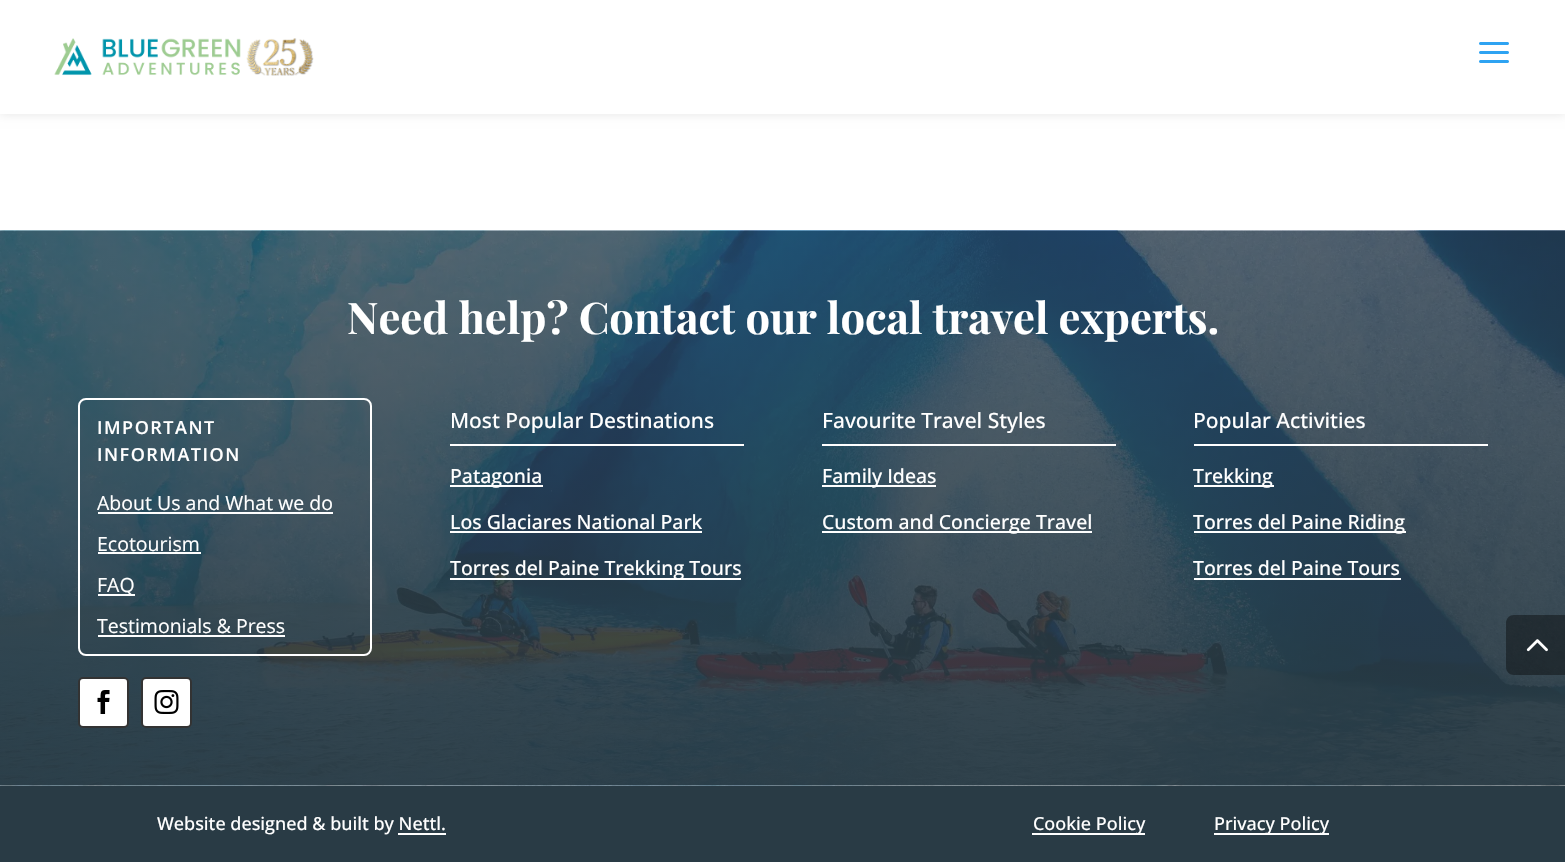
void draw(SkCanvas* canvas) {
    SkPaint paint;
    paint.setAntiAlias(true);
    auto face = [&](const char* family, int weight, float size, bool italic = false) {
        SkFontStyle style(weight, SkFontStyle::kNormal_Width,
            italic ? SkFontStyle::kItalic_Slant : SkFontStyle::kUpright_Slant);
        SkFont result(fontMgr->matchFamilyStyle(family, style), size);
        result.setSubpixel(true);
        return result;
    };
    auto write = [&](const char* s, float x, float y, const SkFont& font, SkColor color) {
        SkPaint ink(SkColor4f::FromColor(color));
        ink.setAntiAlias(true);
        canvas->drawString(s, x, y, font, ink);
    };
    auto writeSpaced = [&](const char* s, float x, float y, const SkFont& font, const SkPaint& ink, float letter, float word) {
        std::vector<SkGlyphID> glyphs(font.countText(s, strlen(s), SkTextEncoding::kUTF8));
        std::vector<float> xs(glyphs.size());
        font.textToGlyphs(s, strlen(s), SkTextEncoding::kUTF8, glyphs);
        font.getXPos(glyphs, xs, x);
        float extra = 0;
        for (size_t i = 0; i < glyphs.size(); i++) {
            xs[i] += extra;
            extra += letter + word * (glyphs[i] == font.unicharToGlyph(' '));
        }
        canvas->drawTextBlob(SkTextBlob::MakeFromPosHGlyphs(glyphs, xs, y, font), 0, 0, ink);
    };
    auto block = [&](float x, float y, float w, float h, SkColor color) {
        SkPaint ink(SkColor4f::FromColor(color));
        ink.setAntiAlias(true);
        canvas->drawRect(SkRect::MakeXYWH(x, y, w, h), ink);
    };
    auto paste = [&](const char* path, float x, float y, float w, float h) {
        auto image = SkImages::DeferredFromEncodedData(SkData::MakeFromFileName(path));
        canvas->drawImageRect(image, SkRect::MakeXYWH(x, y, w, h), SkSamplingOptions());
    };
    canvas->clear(SK_ColorWHITE);
    paint.setColor(SkColorSetARGB(26, 0, 0, 0));
    paint.setMaskFilter(SkMaskFilter::MakeBlur(kNormal_SkBlurStyle, 5));
    canvas->drawRect(SkRect::MakeXYWH(0, 0, 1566, 114), paint);
    paint.setMaskFilter(nullptr);
    block(0, 0, 1565, 114, SK_ColorWHITE);
    paste("pic1.png", 54, 38, 260, 38);
    paste("pic2.png", 1479, 42, 30, 21);
    paste("pic3.png", 0, 230, 1565, 556);
    auto kFont1 = face("Playfair Display", 700, 43.5f);
    write("Need help? Contact our local travel experts.", 347, 334, kFont1, SK_ColorWHITE);
    paint.setStyle(SkPaint::kStroke_Style);
    paint.setStrokeWidth(2);
    paint.setColor(SK_ColorWHITE);
    canvas->drawRoundRect(SkRect::MakeXYWH(79, 399, 292, 256), 7, 7, paint);
    auto kFont2 = face("Open Sans", 600, 18);
    paint.setStyle(SkPaint::kFill_Style);
    writeSpaced("IMPORTANT", 97, 434, kFont2, paint, 1.5f, 0);
    writeSpaced("INFORMATION", 97, 461, kFont2, paint, 1.5f, 0);
    auto kFont3 = face("Open Sans", 400, 19.5f);
    write("About Us and What we do", 97, 510, kFont3, SK_ColorWHITE);
    block(98, 512, 235, 2, SK_ColorWHITE);
    write("Ecotourism", 97, 551, kFont3, SK_ColorWHITE);
    block(98, 552, 103, 2, SK_ColorWHITE);
    block(98, 594, 37, 2, SK_ColorWHITE);
    write("FAQ", 97, 592, kFont3, SK_ColorWHITE);
    write("Testimonials & Press", 97, 633, kFont3, SK_ColorWHITE);
    block(98, 635, 187, 2, SK_ColorWHITE);
    canvas->drawRoundRect(SkRect::MakeXYWH(79, 678, 49, 49), 4, 4, paint);
    paint.setStyle(SkPaint::kStroke_Style);
    paint.setColor(SkColorSetRGB(51, 51, 51));
    canvas->drawRoundRect(SkRect::MakeXYWH(79, 678, 49, 49), 4, 4, paint);
    paste("pic4.png", 97, 690, 13, 24);
    paint.setStyle(SkPaint::kFill_Style);
    paint.setColor(SK_ColorWHITE);
    canvas->drawRoundRect(SkRect::MakeXYWH(142, 678, 49, 49), 4, 4, paint);
    paint.setStyle(SkPaint::kStroke_Style);
    paint.setColor(SkColorSetRGB(51, 51, 51));
    canvas->drawRoundRect(SkRect::MakeXYWH(142, 678, 49, 49), 4, 4, paint);
    paste("pic5.png", 154, 690, 25, 24);
    block(450, 444, 294, 2, SK_ColorWHITE);
    auto kFont4 = face("Open Sans", 500, 21);
    write("Most Popular Destinations", 450, 428, kFont4, SK_ColorWHITE);
    block(450, 485, 93, 2, SK_ColorWHITE);
    auto kFont5 = face("Open Sans", 500, 19.5f);
    write("Patagonia", 450, 483, kFont5, SK_ColorWHITE);
    write("Los Glaciares National Park", 450, 529, kFont5, SK_ColorWHITE);
    block(450, 531, 252, 2, SK_ColorWHITE);
    block(450, 578, 291, 2, SK_ColorWHITE);
    write("Torres del Paine Trekking Tours", 450, 575, kFont5, SK_ColorWHITE);
    block(822, 444, 294, 2, SK_ColorWHITE);
    write("Favourite Travel Styles", 822, 428, kFont4, SK_ColorWHITE);
    block(822, 485, 114, 2, SK_ColorWHITE);
    write("Family Ideas", 822, 483, kFont5, SK_ColorWHITE);
    block(822, 531, 270, 2, SK_ColorWHITE);
    write("Custom and Concierge Travel", 822, 529, kFont5, SK_ColorWHITE);
    block(1194, 444, 294, 2, SK_ColorWHITE);
    write("Popular Activities", 1193, 428, kFont4, SK_ColorWHITE);
    block(1194, 485, 80, 2, SK_ColorWHITE);
    write("Trekking", 1193, 483, kFont5, SK_ColorWHITE);
    block(1194, 531, 212, 2, SK_ColorWHITE);
    write("Torres del Paine Riding", 1193, 529, kFont5, SK_ColorWHITE);
    write("Torres del Paine Tours", 1193, 575, kFont5, SK_ColorWHITE);
    block(1194, 578, 207, 2, SK_ColorWHITE);
    block(0, 786, 1565, 76, SkColorSetRGB(41, 59, 69));
    auto kFont6 = face("Open Sans", 500, 18);
    write("Website designed & built by Nettl.", 157, 830, kFont6, SK_ColorWHITE);
    block(398, 833, 48, 2, SK_ColorWHITE);
    block(1032, 833, 113, 2, SK_ColorWHITE);
    write("Cookie Policy", 1033, 830, kFont6, SK_ColorWHITE);
    block(1214, 833, 115, 2, SK_ColorWHITE);
    write("Privacy Policy", 1214, 830, kFont6, SK_ColorWHITE);
    paint.setStyle(SkPaint::kFill_Style);
    paint.setColor(SkColorSetARGB(102, 0, 0, 0));
    canvas->drawPath(SkPathBuilder().moveTo(1514, 615).lineTo(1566, 615).lineTo(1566, 675).lineTo(1514, 675).cubicTo(1509.5f, 675, 1506, 671.5f, 1506, 667).lineTo(1506, 623).cubicTo(1506, 618.5f, 1509.5f, 615, 1514, 615).close().detach(), paint);
    paste("pic6.png", 1526, 639, 22, 13);
}
